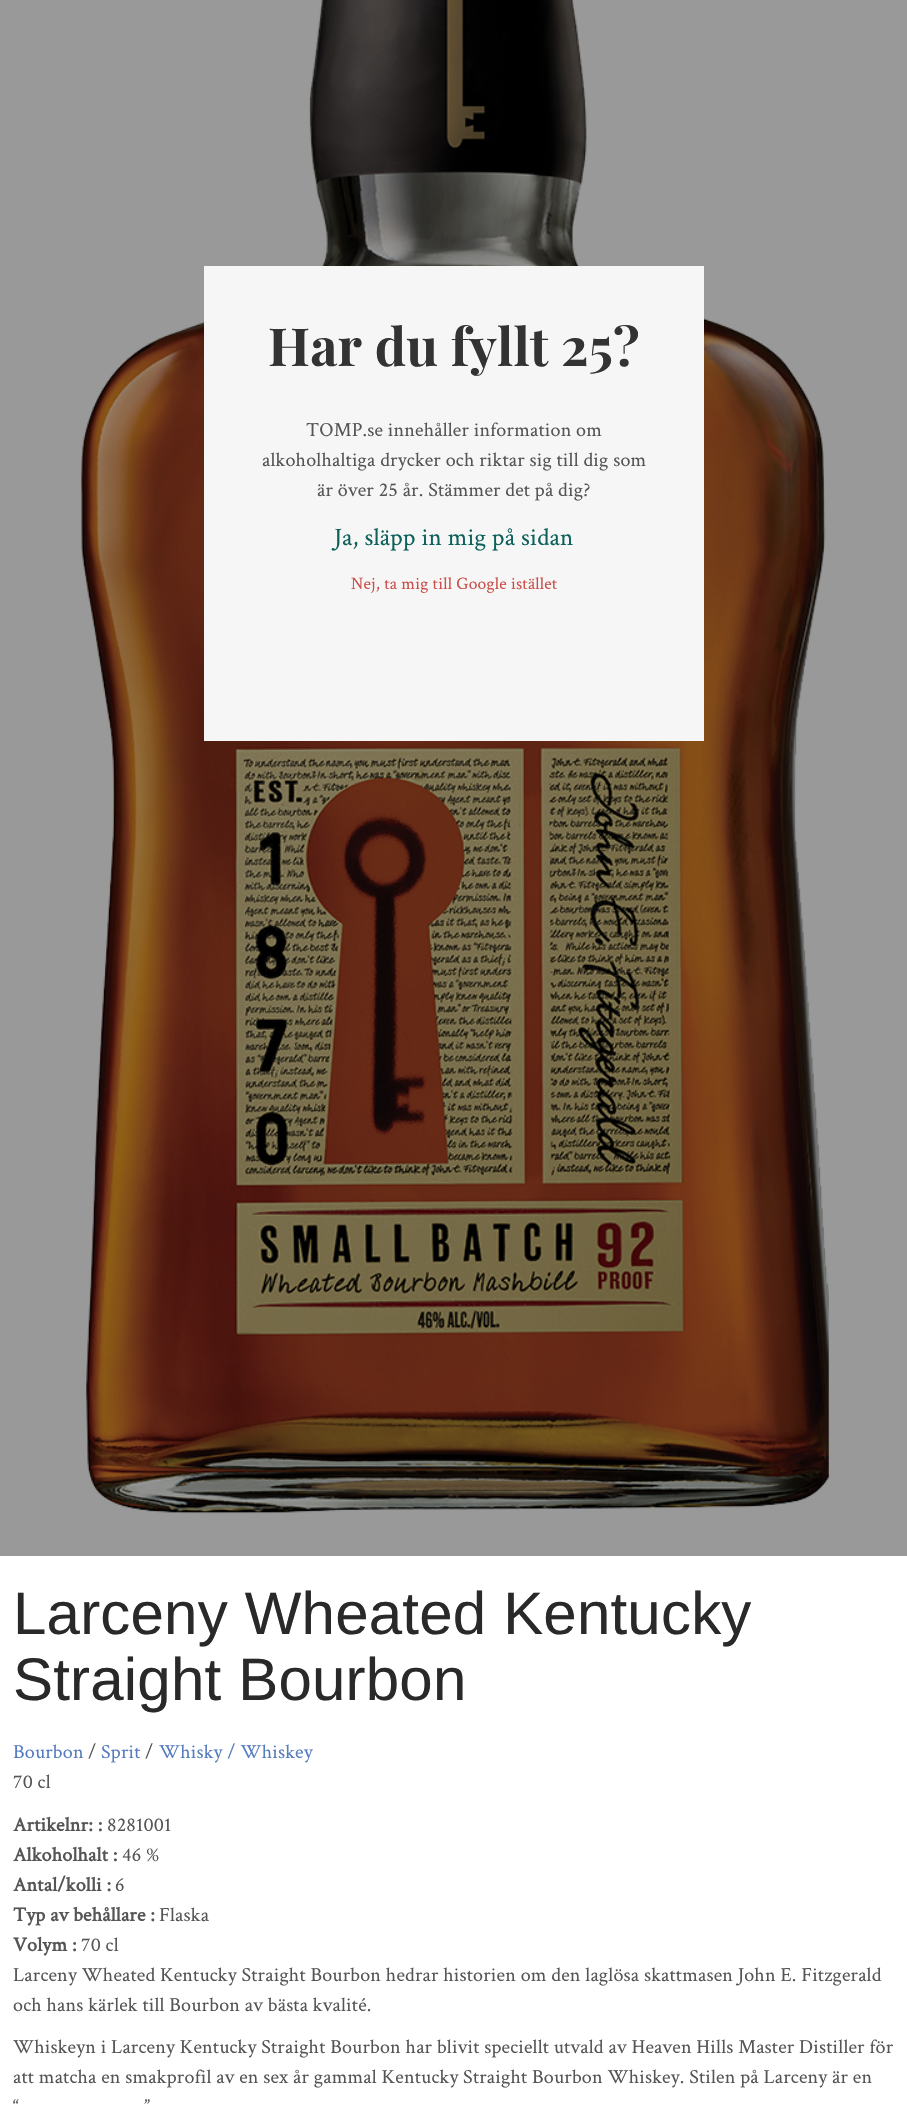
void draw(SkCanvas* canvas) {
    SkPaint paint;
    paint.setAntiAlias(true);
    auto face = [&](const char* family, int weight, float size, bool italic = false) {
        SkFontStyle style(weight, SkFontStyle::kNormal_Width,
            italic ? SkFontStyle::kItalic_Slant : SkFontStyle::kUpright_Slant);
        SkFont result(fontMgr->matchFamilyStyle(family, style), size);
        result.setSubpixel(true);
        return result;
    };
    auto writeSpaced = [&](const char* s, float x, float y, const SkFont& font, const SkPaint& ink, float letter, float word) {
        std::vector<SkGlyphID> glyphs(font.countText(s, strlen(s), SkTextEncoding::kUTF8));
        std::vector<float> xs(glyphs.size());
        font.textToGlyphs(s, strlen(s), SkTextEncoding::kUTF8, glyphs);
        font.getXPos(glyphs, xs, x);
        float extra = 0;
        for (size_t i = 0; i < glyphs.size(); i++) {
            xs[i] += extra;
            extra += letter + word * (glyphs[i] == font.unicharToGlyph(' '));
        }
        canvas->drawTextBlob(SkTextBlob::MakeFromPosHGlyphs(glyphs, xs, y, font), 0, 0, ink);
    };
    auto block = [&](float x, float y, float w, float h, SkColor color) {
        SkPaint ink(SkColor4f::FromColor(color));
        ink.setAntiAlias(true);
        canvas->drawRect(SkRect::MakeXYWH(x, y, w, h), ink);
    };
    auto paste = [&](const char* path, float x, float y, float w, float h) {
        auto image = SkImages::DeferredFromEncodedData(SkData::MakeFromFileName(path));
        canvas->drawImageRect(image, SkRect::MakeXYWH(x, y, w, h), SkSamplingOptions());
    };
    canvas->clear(SK_ColorWHITE);
    block(0, 0, 907, 1556, SkColorSetRGB(153, 153, 153));
    paste("pic1.png", 81, 0, 748, 1514);
    block(204, 266, 500, 475, SkColorSetRGB(246, 246, 246));
    auto kFont1 = face("Playfair Display", 700, 52.5f);
    paint.setColor(SkColorSetRGB(51, 51, 51));
    writeSpaced("Har du fyllt 25?", 268, 366, kFont1, paint, 0.2f, 0);
    auto kFont2 = face("Crimson Text", 400, 20);
    paint.setColor(SkColorSetRGB(85, 85, 85));
    writeSpaced("TOMP.se innehåller information om", 306, 436, kFont2, paint, 0.2f, 0);
    writeSpaced("alkoholhaltiga drycker och riktar sig till dig som", 262, 466, kFont2, paint, 0.2f, 0);
    writeSpaced("är över 25 år. Stämmer det på dig?", 317, 496, kFont2, paint, 0.2f, 0);
    auto kFont3 = face("Crimson Text", 400, 25);
    paint.setColor(SkColorSetRGB(12, 97, 90));
    writeSpaced("Ja, släpp in mig på sidan", 334, 545, kFont3, paint, 0.2f, 0);
    auto kFont4 = face("Crimson Text", 400, 17.5f);
    paint.setColor(SkColorSetRGB(202, 78, 72));
    writeSpaced("Nej, ta mig till Google istället", 351, 589, kFont4, paint, 0.2f, 0);
    auto kFont5 = face("Liberation Sans", 400, 60);
    paint.setColor(SkColorSetRGB(42, 41, 42));
    writeSpaced("Larceny Wheated Kentucky", 13, 1634, kFont5, paint, 0.2f, 0);
    writeSpaced("Straight Bourbon", 13, 1700, kFont5, paint, 0.2f, 0);
    paint.setColor(SkColorSetRGB(85, 124, 191));
    writeSpaced("Bourbon", 13, 1758, kFont2, paint, 0.2f, 0);
    paint.setColor(SkColorSetRGB(85, 85, 85));
    writeSpaced("/", 88, 1758, kFont2, paint, 0.2f, 0);
    paint.setColor(SkColorSetRGB(85, 124, 191));
    writeSpaced("Sprit", 101, 1758, kFont2, paint, 0.2f, 0);
    paint.setColor(SkColorSetRGB(85, 85, 85));
    writeSpaced("/", 145, 1758, kFont2, paint, 0.2f, 0);
    paint.setColor(SkColorSetRGB(85, 124, 191));
    writeSpaced("Whisky / Whiskey", 159, 1758, kFont2, paint, 0.2f, 0);
    paint.setColor(SkColorSetRGB(85, 85, 85));
    writeSpaced("70 cl", 13, 1788, kFont2, paint, 0.2f, 0);
    auto kFont6 = face("Crimson Text", 700, 20);
    writeSpaced("Artikelnr: :", 13, 1831, kFont6, paint, 0.2f, 0);
    writeSpaced("8281001", 107, 1831, kFont2, paint, 0.2f, 0);
    writeSpaced("Alkoholhalt :", 13, 1861, kFont6, paint, 0.2f, 0);
    writeSpaced("46 %", 122, 1861, kFont2, paint, 0.2f, 0);
    writeSpaced("Antal/kolli :", 13, 1891, kFont6, paint, 0.2f, 0);
    writeSpaced("6", 115, 1891, kFont2, paint, 0.2f, 0);
    writeSpaced("Typ av behållare :", 13, 1921, kFont6, paint, 0.2f, 0);
    writeSpaced("Flaska", 159, 1921, kFont2, paint, 0.2f, 0);
    writeSpaced("Volym :", 13, 1951, kFont6, paint, 0.2f, 0);
    writeSpaced("70 cl", 81, 1951, kFont2, paint, 0.2f, 0);
    writeSpaced("Larceny Wheated Kentucky Straight Bourbon hedrar historien om den laglösa skattmasen John E. Fitzgerald", 13, 1981, kFont2, paint, 0.2f, 0);
    writeSpaced("och hans kärlek till Bourbon av bästa kvalité.", 13, 2011, kFont2, paint, 0.2f, 0);
    writeSpaced("Whiskeyn i Larceny Kentucky Straight Bourbon har blivit speciellt utvald av Heaven Hills Master Distiller för", 13, 2053, kFont2, paint, 0.2f, 0);
    writeSpaced("att matcha en smakprofil av en sex år gammal Kentucky Straight Bourbon Whiskey. Stilen på Larceny är en", 13, 2083, kFont2, paint, 0.2f, 0);
    writeSpaced("“", 13, 2113, kFont2, paint, 0.2f, 0);
    writeSpaced("”", 144, 2113, kFont2, paint, 0.2f, 0);
}
